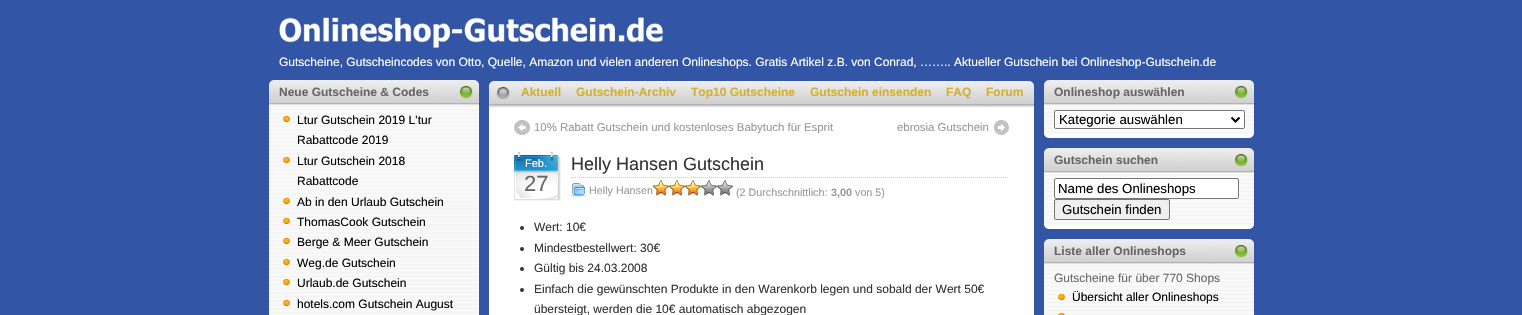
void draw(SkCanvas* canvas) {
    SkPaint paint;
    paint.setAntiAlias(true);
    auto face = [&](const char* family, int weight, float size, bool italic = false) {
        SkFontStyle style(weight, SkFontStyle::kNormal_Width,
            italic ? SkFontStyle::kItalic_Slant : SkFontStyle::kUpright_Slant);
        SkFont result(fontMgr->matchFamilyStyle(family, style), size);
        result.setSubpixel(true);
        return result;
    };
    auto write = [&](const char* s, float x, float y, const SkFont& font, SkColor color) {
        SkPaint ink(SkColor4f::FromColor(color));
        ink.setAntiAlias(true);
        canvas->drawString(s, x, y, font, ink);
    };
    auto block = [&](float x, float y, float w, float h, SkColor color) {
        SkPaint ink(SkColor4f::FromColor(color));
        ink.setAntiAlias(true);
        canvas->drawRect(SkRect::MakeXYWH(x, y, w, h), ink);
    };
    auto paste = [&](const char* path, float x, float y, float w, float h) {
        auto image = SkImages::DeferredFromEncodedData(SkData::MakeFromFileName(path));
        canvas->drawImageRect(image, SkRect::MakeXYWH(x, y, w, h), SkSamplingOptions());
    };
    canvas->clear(SkColorSetRGB(50, 85, 166));
    paste("pic1.png", 279, 17, 384, 31);
    auto kFont1 = face("Liberation Sans", 400, 12);
    write("Gutscheine, Gutscheincodes von Otto, Quelle, Amazon und vielen anderen Onlineshops. Gratis Artikel z.B. von Conrad, …….. Aktueller Gutschein bei Onlineshop-Gutschein.de", 279, 66, kFont1, SK_ColorWHITE);
    paste("pic2.png", 269, 80, 210, 25);
    auto kFont2 = face("Liberation Sans", 700, 12);
    write("Neue Gutscheine & Codes", 279, 96, kFont2, SkColorSetRGB(102, 102, 102));
    paste("pic3.png", 460, 86, 13, 13);
    paste("pic4.png", 269, 105, 210, 210);
    paste("pic5.png", 283, 116, 7, 6);
    write("Ltur Gutschein 2019 L’tur", 297, 124, kFont1, SK_ColorBLACK);
    write("Rabattcode 2019", 297, 144, kFont1, SK_ColorBLACK);
    paste("pic6.png", 283, 157, 7, 6);
    write("Ltur Gutschein 2018", 297, 165, kFont1, SK_ColorBLACK);
    write("Rabattcode", 297, 185, kFont1, SK_ColorBLACK);
    paste("pic7.png", 283, 198, 7, 6);
    write("Ab in den Urlaub Gutschein", 297, 206, kFont1, SK_ColorBLACK);
    paste("pic8.png", 283, 218, 7, 6);
    write("ThomasCook Gutschein", 297, 226, kFont1, SK_ColorBLACK);
    paste("pic8.png", 283, 238, 7, 6);
    write("Berge & Meer Gutschein", 297, 246, kFont1, SK_ColorBLACK);
    paste("pic5.png", 283, 259, 7, 6);
    write("Weg.de Gutschein", 297, 267, kFont1, SK_ColorBLACK);
    paste("pic9.png", 283, 279, 7, 6);
    write("Urlaub.de Gutschein", 297, 287, kFont1, SK_ColorBLACK);
    paste("pic10.png", 283, 300, 7, 6);
    write("hotels.com Gutschein August", 297, 308, kFont1, SK_ColorBLACK);
    paste("pic11.png", 489, 81, 545, 26);
    write("Aktuell", 521, 96, kFont2, SkColorSetRGB(210, 176, 50));
    write("Gutschein-Archiv", 576, 96, kFont2, SkColorSetRGB(210, 176, 50));
    write("Top10 Gutscheine", 691, 96, kFont2, SkColorSetRGB(210, 176, 50));
    write("Gutschein einsenden", 810, 96, kFont2, SkColorSetRGB(210, 176, 50));
    write("FAQ", 946, 96, kFont2, SkColorSetRGB(210, 176, 50));
    write("Forum", 986, 96, kFont2, SkColorSetRGB(210, 176, 50));
    block(489, 107, 545, 208, SK_ColorWHITE);
    paste("pic12.png", 514, 120, 17, 15);
    auto kFont3 = face("Liberation Sans", 400, 11.4f);
    write("10% Rabatt Gutschein und kostenloses Babytuch für Esprit", 534, 131, kFont3, SkColorSetRGB(153, 153, 153));
    paste("pic13.png", 993, 120, 16, 15);
    write("ebrosia Gutschein", 897, 131, kFont3, SkColorSetRGB(153, 153, 153));
    paste("pic14.png", 514, 152, 47, 49);
    auto kFont4 = face("Liberation Sans", 400, 11);
    write("Feb.", 525, 167, kFont4, SK_ColorWHITE);
    auto kFont5 = face("Liberation Sans", 400, 22);
    write("27", 524, 191, kFont5, SkColorSetRGB(102, 102, 102));
    paint.setStyle(SkPaint::kStroke_Style);
    paint.setStrokeWidth(1);
    paint.setColor(SkColorSetRGB(204, 204, 204));
    paint.setPathEffect(SkDashPathEffect::Make({{1, 1}}, 0));
    canvas->drawPath(SkPathBuilder().moveTo(571, 177.5f).lineTo(1009, 177.5f).detach(), paint);
    paint.setPathEffect(nullptr);
    auto kFont6 = face("Liberation Sans", 400, 18);
    write("Helly Hansen Gutschein", 571, 170, kFont6, SkColorSetRGB(51, 51, 51));
    paste("pic15.png", 571, 183, 15, 14);
    auto kFont7 = face("Liberation Sans", 400, 10.75f);
    write("Helly Hansen", 589, 194, kFont7, SkColorSetRGB(153, 153, 153));
    paste("pic16.png", 653, 180, 16, 16);
    paste("pic16.png", 669, 180, 16, 16);
    paste("pic16.png", 685, 180, 16, 16);
    paste("pic17.png", 701, 180, 16, 16);
    paste("pic17.png", 717, 180, 16, 16);
    write("(2 Durchschnittlich:", 736, 196, kFont7, SkColorSetRGB(153, 153, 153));
    auto kFont8 = face("Liberation Sans", 700, 10.75f);
    write("3,00", 831, 196, kFont8, SkColorSetRGB(153, 153, 153));
    write("von 5)", 855, 196, kFont7, SkColorSetRGB(153, 153, 153));
    paint.setStyle(SkPaint::kFill_Style);
    paint.setColor(SkColorSetRGB(51, 51, 51));
    canvas->drawCircle(522, 228, 2, paint);
    write("Wert: 10€", 534, 231, kFont1, SkColorSetRGB(51, 51, 51));
    canvas->drawCircle(522, 249, 2, paint);
    write("Mindestbestellwert: 30€", 534, 252, kFont1, SkColorSetRGB(51, 51, 51));
    canvas->drawCircle(522, 269, 2, paint);
    write("Gültig bis 24.03.2008", 534, 272, kFont1, SkColorSetRGB(51, 51, 51));
    canvas->drawCircle(522, 290, 2, paint);
    write("Einfach die gewünschten Produkte in den Warenkorb legen und sobald der Wert 50€", 534, 293, kFont1, SkColorSetRGB(51, 51, 51));
    write("übersteigt, werden die 10€ automatisch abgezogen", 534, 313, kFont1, SkColorSetRGB(51, 51, 51));
    paste("pic2.png", 1044, 80, 210, 25);
    write("Onlineshop auswählen", 1054, 96, kFont2, SkColorSetRGB(102, 102, 102));
    paste("pic3.png", 1235, 86, 13, 13);
    paste("pic18.png", 1044, 105, 210, 33);
    paint.setColor(SK_ColorWHITE);
    canvas->drawRoundRect(SkRect::MakeXYWH(1054.5f, 110.5f, 190, 18), 1.5f, 1.5f, paint);
    paint.setStyle(SkPaint::kStroke_Style);
    paint.setColor(SkColorSetRGB(118, 118, 118));
    canvas->drawRoundRect(SkRect::MakeXYWH(1054.5f, 110.5f, 190, 18), 1.5f, 1.5f, paint);
    paint.setStrokeWidth(2);
    paint.setColor(SK_ColorBLACK);
    canvas->drawPath(SkPathBuilder().moveTo(1231.5f, 117.5f).lineTo(1235.5f, 121.5f).lineTo(1239.5f, 117.5f).detach(), paint);
    auto kFont9 = face("Liberation Sans", 400, 13.25f);
    write("Kategorie auswählen", 1059, 124, kFont9, SK_ColorBLACK);
    paste("pic2.png", 1044, 148, 210, 25);
    write("Gutschein suchen", 1054, 164, kFont2, SkColorSetRGB(102, 102, 102));
    paste("pic3.png", 1235, 154, 13, 13);
    paste("pic19.png", 1044, 173, 210, 56);
    paint.setStyle(SkPaint::kFill_Style);
    paint.setColor(SK_ColorWHITE);
    canvas->drawRoundRect(SkRect::MakeXYWH(1054.5f, 178.5f, 184, 20), 1.5f, 1.5f, paint);
    paint.setStyle(SkPaint::kStroke_Style);
    paint.setStrokeWidth(1);
    paint.setColor(SkColorSetRGB(118, 118, 118));
    canvas->drawRoundRect(SkRect::MakeXYWH(1054.5f, 178.5f, 184, 20), 1.5f, 1.5f, paint);
    write("Name des Onlineshops", 1058, 193, kFont9, SK_ColorBLACK);
    paint.setStyle(SkPaint::kFill_Style);
    paint.setColor(SkColorSetRGB(239, 239, 239));
    canvas->drawRoundRect(SkRect::MakeXYWH(1054.5f, 199.5f, 115, 20), 1.5f, 1.5f, paint);
    paint.setStyle(SkPaint::kStroke_Style);
    paint.setColor(SkColorSetRGB(118, 118, 118));
    canvas->drawRoundRect(SkRect::MakeXYWH(1054.5f, 199.5f, 115, 20), 1.5f, 1.5f, paint);
    write("Gutschein finden", 1062, 214, kFont9, SK_ColorBLACK);
    paste("pic2.png", 1044, 239, 210, 25);
    write("Liste aller Onlineshops", 1054, 255, kFont2, SkColorSetRGB(102, 102, 102));
    paste("pic3.png", 1235, 245, 13, 13);
    paste("pic20.png", 1044, 264, 210, 51);
    write("Gutscheine für über 770 Shops", 1054, 282, kFont1, SkColorSetRGB(102, 102, 102));
    paste("pic21.png", 1058, 294, 7, 6);
    write("Übersicht aller Onlineshops", 1072, 301, kFont1, SK_ColorBLACK);
    paste("pic22.png", 1058, 313, 7, 2);
}
